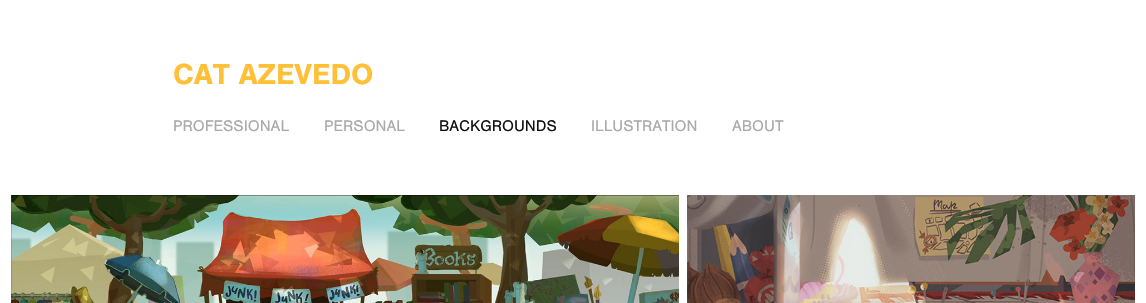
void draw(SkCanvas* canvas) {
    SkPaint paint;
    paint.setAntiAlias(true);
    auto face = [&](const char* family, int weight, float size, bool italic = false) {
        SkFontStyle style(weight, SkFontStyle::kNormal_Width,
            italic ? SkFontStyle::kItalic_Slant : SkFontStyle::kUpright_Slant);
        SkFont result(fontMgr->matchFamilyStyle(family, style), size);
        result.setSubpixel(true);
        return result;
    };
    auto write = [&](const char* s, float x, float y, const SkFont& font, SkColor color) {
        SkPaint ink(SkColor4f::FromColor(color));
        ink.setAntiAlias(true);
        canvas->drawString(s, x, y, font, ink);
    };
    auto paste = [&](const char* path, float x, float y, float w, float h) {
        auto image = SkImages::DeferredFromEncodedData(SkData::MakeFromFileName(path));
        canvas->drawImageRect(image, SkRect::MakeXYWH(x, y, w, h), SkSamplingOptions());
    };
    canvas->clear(SK_ColorWHITE);
    auto kFont1 = face("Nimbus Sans", 700, 30);
    write("CAT AZEVEDO", 173, 84, kFont1, SkColorSetRGB(255, 192, 56));
    auto kFont2 = face("Nimbus Sans", 400, 16);
    write("PROFESSIONAL", 173, 131, kFont2, SkColorSetRGB(170, 170, 170));
    write("PERSONAL", 324, 131, kFont2, SkColorSetRGB(170, 170, 170));
    write("BACKGROUNDS", 439, 131, kFont2, SkColorSetRGB(17, 17, 17));
    write("ILLUSTRATION", 591, 131, kFont2, SkColorSetRGB(170, 170, 170));
    write("ABOUT", 732, 131, kFont2, SkColorSetRGB(170, 170, 170));
    paste("pic1.png", 11, 195, 668, 108);
    paste("pic2.png", 687, 195, 448, 108);
}
